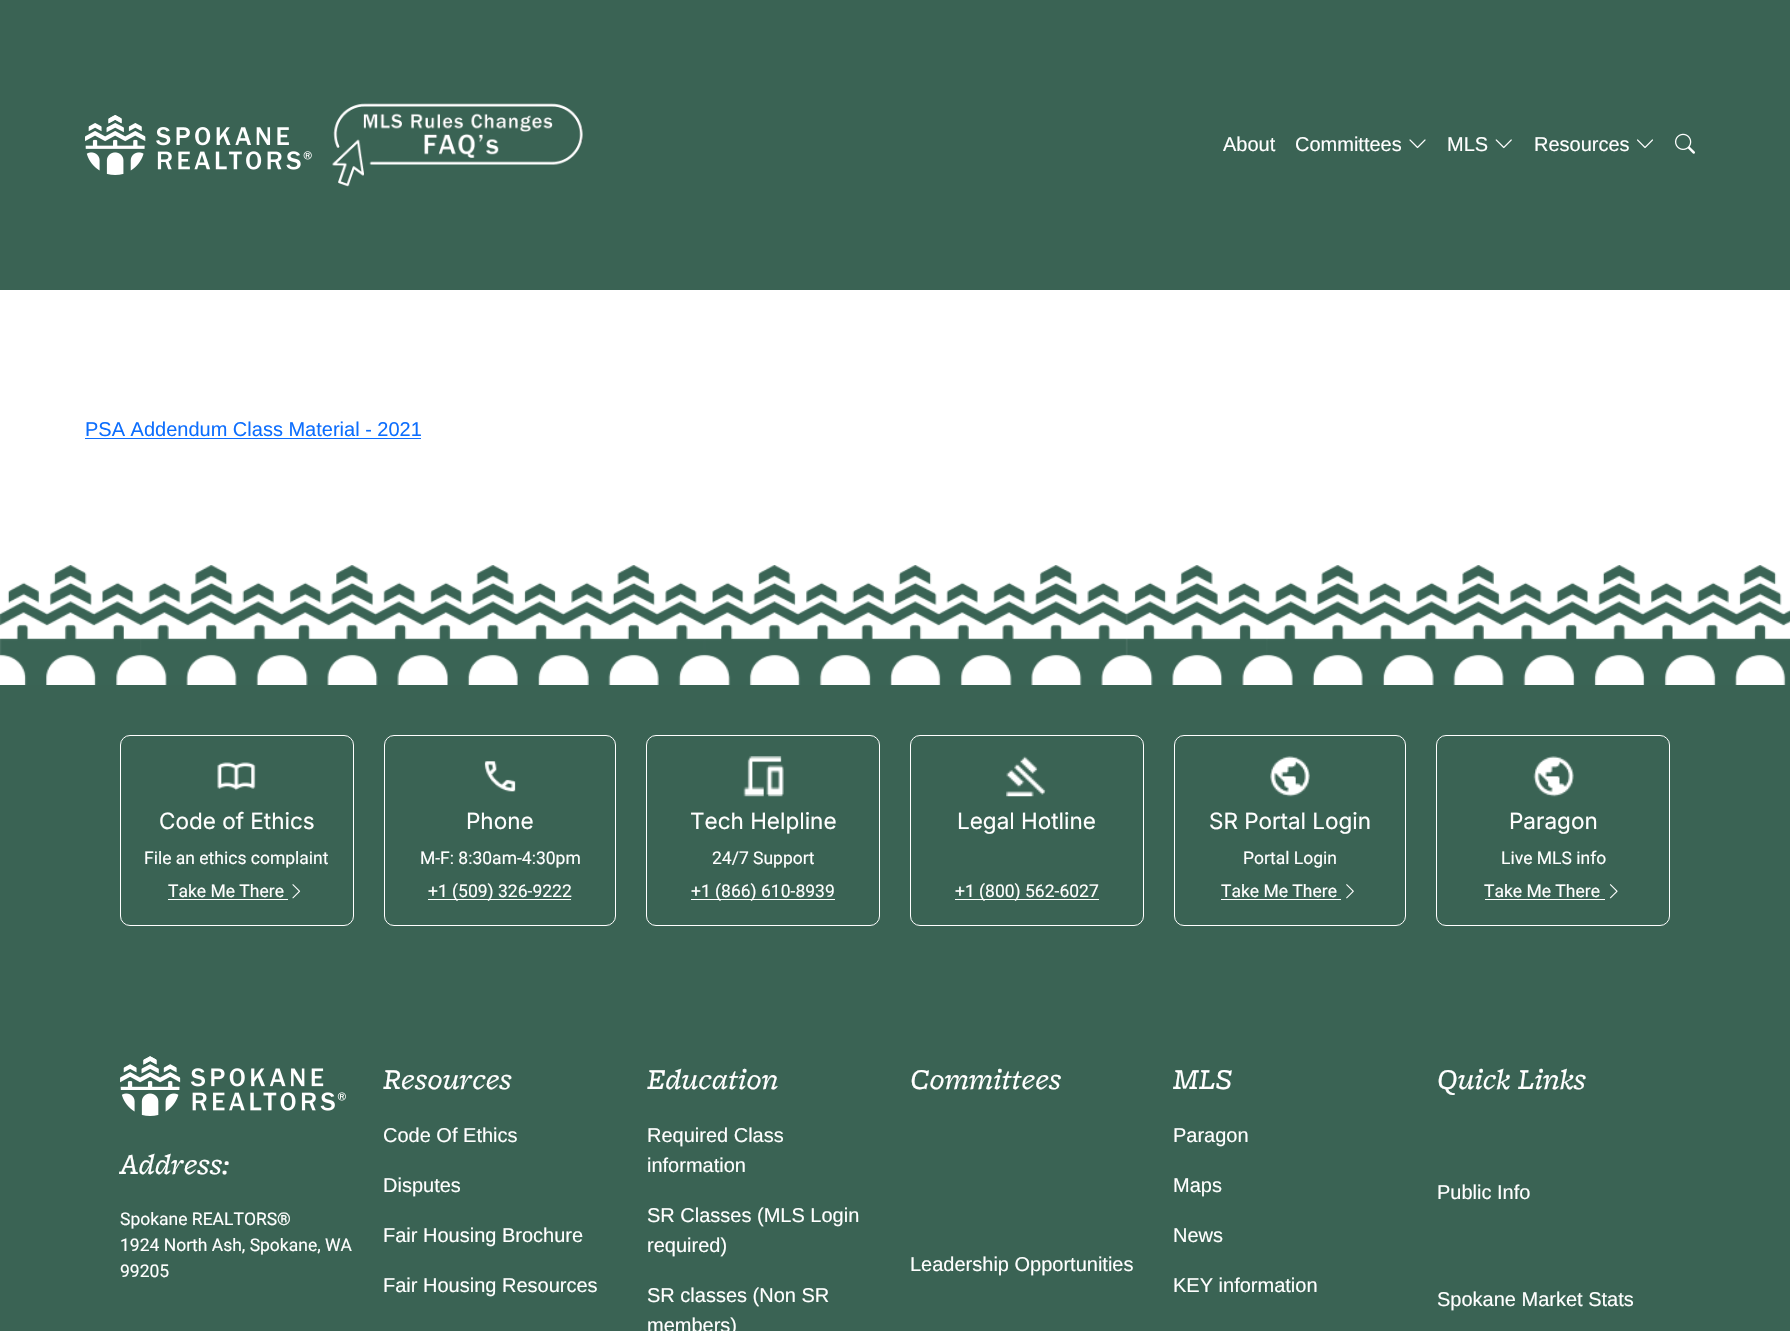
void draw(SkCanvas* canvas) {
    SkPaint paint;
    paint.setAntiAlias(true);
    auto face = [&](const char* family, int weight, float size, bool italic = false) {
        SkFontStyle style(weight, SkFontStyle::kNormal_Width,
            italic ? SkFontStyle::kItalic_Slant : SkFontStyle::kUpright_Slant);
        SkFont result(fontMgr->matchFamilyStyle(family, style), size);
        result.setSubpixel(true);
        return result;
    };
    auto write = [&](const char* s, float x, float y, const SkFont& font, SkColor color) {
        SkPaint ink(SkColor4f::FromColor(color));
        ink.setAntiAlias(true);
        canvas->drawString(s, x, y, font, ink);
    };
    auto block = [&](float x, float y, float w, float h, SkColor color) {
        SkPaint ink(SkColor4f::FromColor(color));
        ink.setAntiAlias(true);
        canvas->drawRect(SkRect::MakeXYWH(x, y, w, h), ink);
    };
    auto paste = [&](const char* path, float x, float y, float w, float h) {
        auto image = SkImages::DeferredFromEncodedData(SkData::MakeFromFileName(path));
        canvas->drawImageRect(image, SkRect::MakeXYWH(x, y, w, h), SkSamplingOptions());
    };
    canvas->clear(SK_ColorWHITE);
    block(0, 0, 1790, 290, SkColorSetRGB(58, 99, 84));
    paste("pic1.png", 85, 115, 227, 60);
    paste("pic2.png", 332, 103, 251, 84);
    auto kFont1 = face("Liberation Sans", 400, 20);
    write("About", 1223, 151, kFont1, SK_ColorWHITE);
    write("Committees", 1295, 151, kFont1, SK_ColorWHITE);
    paste("pic3.png", 1409, 139, 17, 10);
    write("MLS", 1447, 151, kFont1, SK_ColorWHITE);
    paste("pic4.png", 1495, 139, 17, 10);
    write("Resources", 1534, 151, kFont1, SK_ColorWHITE);
    paste("pic5.png", 1637, 139, 16, 10);
    paste("pic6.png", 1675, 133, 20, 21);
    write("PSA Addendum Class Material - 2021", 85, 436, kFont1, SkColorSetRGB(13, 110, 253));
    block(85, 438, 336, 1, SkColorSetRGB(13, 110, 253));
    paste("pic7.png", 0, 565, 1790, 120);
    block(0, 685, 1790, 646, SkColorSetRGB(58, 99, 84));
    paint.setStyle(SkPaint::kStroke_Style);
    paint.setStrokeWidth(1);
    paint.setColor(SK_ColorWHITE);
    canvas->drawRoundRect(SkRect::MakeXYWH(120.5f, 735.5f, 233, 190), 9.5f, 9.5f, paint);
    paste("pic8.png", 217, 762, 39, 29);
    auto kFont2 = face("Inter", 400, 22.5f);
    write("Code of Ethics", 159, 829, kFont2, SK_ColorWHITE);
    auto kFont3 = face("Roboto", 400, 17.5f);
    write("File an ethics complaint", 144, 864, kFont3, SK_ColorWHITE);
    write("Take Me There", 168, 897, kFont3, SK_ColorWHITE);
    block(168, 899, 120, 1, SK_ColorWHITE);
    paste("pic9.png", 292, 884, 9, 15);
    canvas->drawRoundRect(SkRect::MakeXYWH(384.5f, 735.5f, 231, 190), 9.5f, 9.5f, paint);
    paste("pic10.png", 484, 761, 32, 31);
    write("Phone", 466, 829, kFont2, SK_ColorWHITE);
    write("M-F: 8:30am-4:30pm", 420, 864, kFont3, SK_ColorWHITE);
    block(428, 899, 143, 1, SK_ColorWHITE);
    write("+1 (509) 326-9222", 428, 897, kFont3, SK_ColorWHITE);
    canvas->drawRoundRect(SkRect::MakeXYWH(646.5f, 735.5f, 233, 190), 9.5f, 9.5f, paint);
    paste("pic11.png", 743, 756, 41, 41);
    write("Tech Helpline", 690, 829, kFont2, SK_ColorWHITE);
    write("24/7 Support", 712, 864, kFont3, SK_ColorWHITE);
    block(691, 899, 144, 1, SK_ColorWHITE);
    write("+1 (866) 610-8939", 691, 897, kFont3, SK_ColorWHITE);
    canvas->drawRoundRect(SkRect::MakeXYWH(910.5f, 735.5f, 233, 190), 9.5f, 9.5f, paint);
    paste("pic12.png", 1006, 756, 40, 41);
    write("Legal Hotline", 957, 829, kFont2, SK_ColorWHITE);
    block(955, 899, 144, 1, SK_ColorWHITE);
    write("+1 (800) 562-6027", 955, 897, kFont3, SK_ColorWHITE);
    canvas->drawRoundRect(SkRect::MakeXYWH(1174.5f, 735.5f, 231, 190), 9.5f, 9.5f, paint);
    paste("pic13.png", 1270, 756, 40, 41);
    write("SR Portal Login", 1209, 829, kFont2, SK_ColorWHITE);
    write("Portal Login", 1243, 864, kFont3, SK_ColorWHITE);
    write("Take Me There", 1221, 897, kFont3, SK_ColorWHITE);
    block(1221, 899, 120, 1, SK_ColorWHITE);
    paste("pic14.png", 1346, 884, 8, 15);
    canvas->drawRoundRect(SkRect::MakeXYWH(1436.5f, 735.5f, 233, 190), 9.5f, 9.5f, paint);
    paste("pic15.png", 1533, 756, 41, 41);
    write("Paragon", 1509, 829, kFont2, SK_ColorWHITE);
    write("Live MLS info", 1501, 864, kFont3, SK_ColorWHITE);
    write("Take Me There", 1484, 897, kFont3, SK_ColorWHITE);
    block(1485, 899, 120, 1, SK_ColorWHITE);
    paste("pic16.png", 1609, 884, 9, 15);
    paste("pic17.png", 120, 1056, 226, 60);
    auto kFont4 = face("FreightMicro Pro", 400, 30, true);
    write("Address:", 120, 1174, kFont4, SK_ColorWHITE);
    write("Spokane REALTORS®", 120, 1225, kFont3, SK_ColorWHITE);
    write("1924 North Ash, Spokane, WA", 120, 1251, kFont3, SK_ColorWHITE);
    write("99205", 120, 1277, kFont3, SK_ColorWHITE);
    write("Resources", 383, 1089, kFont4, SK_ColorWHITE);
    write("Code Of Ethics", 383, 1142, kFont1, SK_ColorWHITE);
    write("Disputes", 383, 1192, kFont1, SK_ColorWHITE);
    write("Fair Housing Brochure", 383, 1242, kFont1, SK_ColorWHITE);
    write("Fair Housing Resources", 383, 1292, kFont1, SK_ColorWHITE);
    write("Education", 647, 1089, kFont4, SK_ColorWHITE);
    write("Required Class", 647, 1142, kFont1, SK_ColorWHITE);
    write("information", 647, 1172, kFont1, SK_ColorWHITE);
    write("SR Classes (MLS Login", 647, 1222, kFont1, SK_ColorWHITE);
    write("required)", 647, 1252, kFont1, SK_ColorWHITE);
    write("SR classes (Non SR", 647, 1302, kFont1, SK_ColorWHITE);
    write("members)", 647, 1332, kFont1, SK_ColorWHITE);
    write("Committees", 910, 1089, kFont4, SK_ColorWHITE);
    write("Leadership Opportunities", 910, 1271, kFont1, SK_ColorWHITE);
    write("MLS", 1173, 1089, kFont4, SK_ColorWHITE);
    write("Paragon", 1173, 1142, kFont1, SK_ColorWHITE);
    write("Maps", 1173, 1192, kFont1, SK_ColorWHITE);
    write("News", 1173, 1242, kFont1, SK_ColorWHITE);
    write("KEY information", 1173, 1292, kFont1, SK_ColorWHITE);
    write("Quick Links", 1437, 1089, kFont4, SK_ColorWHITE);
    write("Public Info", 1437, 1199, kFont1, SK_ColorWHITE);
    write("Spokane Market Stats", 1437, 1306, kFont1, SK_ColorWHITE);
}
